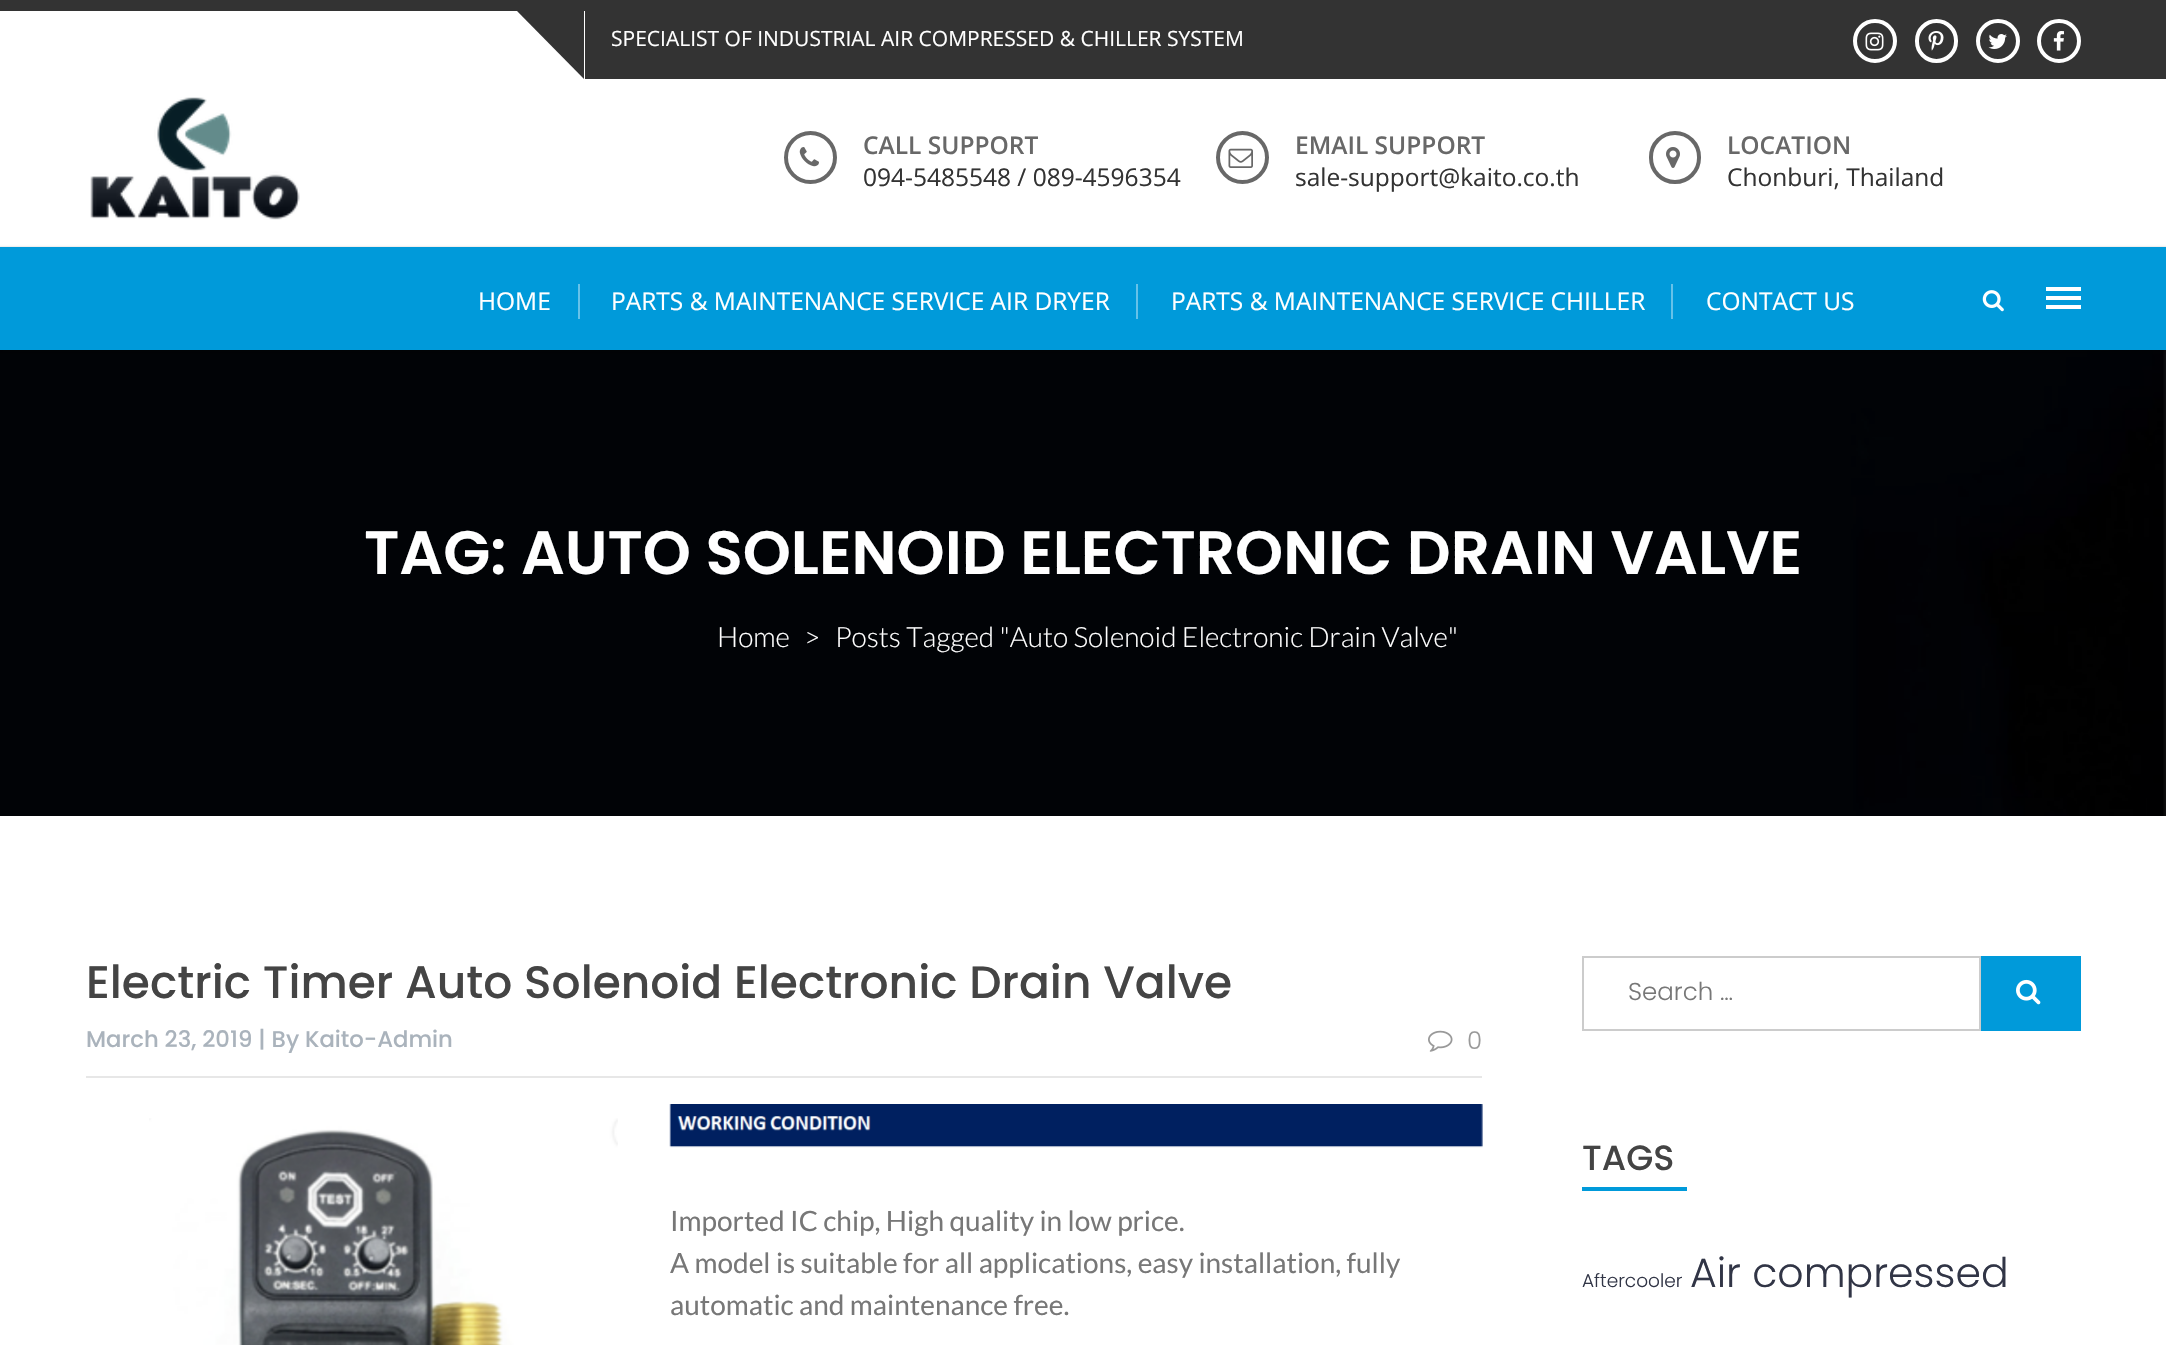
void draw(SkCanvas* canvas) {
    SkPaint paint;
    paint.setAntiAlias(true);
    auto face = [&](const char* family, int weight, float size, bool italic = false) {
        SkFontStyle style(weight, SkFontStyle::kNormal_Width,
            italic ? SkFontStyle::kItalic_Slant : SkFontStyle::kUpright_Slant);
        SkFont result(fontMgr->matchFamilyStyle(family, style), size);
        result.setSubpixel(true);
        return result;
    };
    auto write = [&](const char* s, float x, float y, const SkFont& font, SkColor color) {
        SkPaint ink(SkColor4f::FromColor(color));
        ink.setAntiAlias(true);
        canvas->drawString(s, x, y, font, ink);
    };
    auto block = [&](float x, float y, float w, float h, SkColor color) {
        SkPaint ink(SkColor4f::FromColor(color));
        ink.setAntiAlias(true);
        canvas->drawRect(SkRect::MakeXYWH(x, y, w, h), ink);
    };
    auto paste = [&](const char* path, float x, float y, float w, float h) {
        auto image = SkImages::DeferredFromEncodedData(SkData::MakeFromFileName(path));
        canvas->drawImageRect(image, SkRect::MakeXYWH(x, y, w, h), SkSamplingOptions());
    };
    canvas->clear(SK_ColorWHITE);
    block(0, 0, 2166, 11, SkColorSetRGB(51, 51, 51));
    paint.setColor(SkColorSetRGB(51, 51, 51));
    canvas->drawPath(SkPathBuilder().moveTo(1015, 10).lineTo(1083, 10).lineTo(1083, 79).close().detach(), paint);
    block(1482, 11, 684, 68, SkColorSetRGB(51, 51, 51));
    block(585, 11, 897, 68, SkColorSetRGB(51, 51, 51));
    canvas->drawPath(SkPathBuilder().moveTo(516, 10).lineTo(584, 10).lineTo(584, 79).close().detach(), paint);
    auto kFont1 = face("Open Sans", 400, 21);
    write("SPECIALIST OF INDUSTRIAL AIR COMPRESSED & CHILLER SYSTEM", 611, 46, kFont1, SK_ColorWHITE);
    paint.setStyle(SkPaint::kStroke_Style);
    paint.setStrokeWidth(4);
    paint.setColor(SK_ColorWHITE);
    canvas->drawCircle(1875, 41, 20, paint);
    paste("pic1.png", 1865, 32, 19, 19);
    canvas->drawRoundRect(SkRect::MakeXYWH(1917, 21, 39, 40), 19.5f, 19.5f, paint);
    paste("pic2.png", 1928, 31, 16, 20);
    canvas->drawCircle(1998, 41, 20, paint);
    paste("pic3.png", 1988, 34, 19, 15);
    canvas->drawCircle(2059, 41, 20, paint);
    paste("pic4.png", 2053, 31, 11, 20);
    paste("pic5.png", 90, 97, 210, 123);
    paint.setColor(SkColorSetRGB(104, 104, 104));
    canvas->drawCircle(810.5f, 157.5f, 24.5f, paint);
    paste("pic6.png", 799, 147, 20, 20);
    auto kFont2 = face("Open Sans", 600, 24.5f);
    write("CALL SUPPORT", 863, 154, kFont2, SkColorSetRGB(104, 104, 104));
    auto kFont3 = face("Open Sans", 400, 24.5f);
    write("094-5485548 / 089-4596354", 863, 186, kFont3, SkColorSetRGB(51, 51, 51));
    canvas->drawCircle(1242.5f, 157.5f, 24.5f, paint);
    paste("pic7.png", 1228, 148, 25, 20);
    write("EMAIL SUPPORT", 1295, 154, kFont2, SkColorSetRGB(104, 104, 104));
    write("sale-support@kaito.co.th", 1295, 186, kFont3, SkColorSetRGB(51, 51, 51));
    canvas->drawRoundRect(SkRect::MakeXYWH(1651, 133, 48, 49), 24, 24, paint);
    paste("pic8.png", 1666, 147, 14, 21);
    write("LOCATION", 1727, 154, kFont2, SkColorSetRGB(104, 104, 104));
    write("Chonburi, Thailand", 1727, 186, kFont3, SkColorSetRGB(51, 51, 51));
    paste("pic10.png", 0, 350, 2166, 466);
    paint.setStyle(SkPaint::kFill_Style);
    paint.setColor(SkColorSetARGB(51, 0, 0, 0));
    paint.setMaskFilter(SkMaskFilter::MakeBlur(kNormal_SkBlurStyle, 1));
    canvas->drawRect(SkRect::MakeXYWH(-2, 247, 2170, 107), paint);
    paint.setMaskFilter(nullptr);
    block(0, 247, 2166, 103, SkColorSetRGB(0, 154, 218));
    block(578, 284, 2, 35, SkColorSetRGB(102, 194, 233));
    write("HOME", 478, 310, kFont3, SK_ColorWHITE);
    block(1136, 284, 2, 35, SkColorSetRGB(102, 194, 233));
    write("PARTS & MAINTENANCE SERVICE AIR DRYER", 611, 310, kFont3, SK_ColorWHITE);
    block(1671, 284, 2, 35, SkColorSetRGB(102, 194, 233));
    write("PARTS & MAINTENANCE SERVICE CHILLER", 1171, 310, kFont3, SK_ColorWHITE);
    write("CONTACT US", 1706, 310, kFont3, SK_ColorWHITE);
    paste("pic9.png", 1982, 290, 22, 22);
    block(2046, 287, 35, 4, SK_ColorWHITE);
    block(2046, 296, 35, 4, SK_ColorWHITE);
    block(2046, 305, 35, 4, SK_ColorWHITE);
    auto kFont4 = face("Poppins", 600, 61.25f);
    write("TAG: AUTO SOLENOID ELECTRONIC DRAIN VALVE", 364, 574, kFont4, SK_ColorWHITE);
    auto kFont5 = face("Lato", 300, 28);
    write("Home", 717, 647, kFont5, SK_ColorWHITE);
    write(">", 804, 647, kFont5, SK_ColorWHITE);
    write("Posts Tagged \"Auto Solenoid Electronic Drain Valve\"", 835, 647, kFont5, SK_ColorWHITE);
    auto kFont6 = face("Poppins", 500, 45.5f);
    write("Electric Timer Auto Solenoid Electronic Drain Valve", 86, 998, kFont6, SkColorSetRGB(68, 68, 68));
    block(86, 1076, 1396, 2, SkColorSetRGB(231, 231, 231));
    auto kFont7 = face("Poppins", 500, 22.75f);
    write("March 23, 2019 | By Kaito-Admin", 86, 1047, kFont7, SkColorSetRGB(170, 179, 188));
    paste("pic11.png", 1428, 1030, 25, 22);
    auto kFont8 = face("Poppins", 300, 24.5f);
    write("0", 1467, 1049, kFont8, SkColorSetRGB(153, 153, 153));
    paste("pic12.png", 149, 1118, 469, 227);
    paste("pic13.png", 669, 1104, 814, 44);
    auto kFont9 = face("Lato", 400, 28);
    write("Imported IC chip, High quality in low price.", 670, 1231, kFont9, SkColorSetRGB(119, 119, 119));
    write("A model is suitable for all applications, easy installation, fully", 670, 1273, kFont9, SkColorSetRGB(119, 119, 119));
    write("automatic and maintenance free.", 670, 1315, kFont9, SkColorSetRGB(119, 119, 119));
    block(1981, 956, 100, 75, SkColorSetRGB(0, 154, 218));
    paint.setStyle(SkPaint::kStroke_Style);
    paint.setStrokeWidth(2);
    paint.setColor(SkColorSetRGB(204, 204, 204));
    canvas->drawRect(SkRect::MakeXYWH(1583, 957, 397, 73), paint);
    write("Search …", 1628, 1000, kFont8, SkColorSetRGB(119, 119, 119));
    paste("pic14.png", 2016, 979, 25, 26);
    auto kFont10 = face("Poppins", 500, 35);
    write("TAGS", 1582, 1170, kFont10, SkColorSetRGB(68, 68, 68));
    block(1582, 1187, 105, 4, SkColorSetRGB(0, 154, 218));
    auto kFont11 = face("Poppins", 300, 18.5f);
    write("Aftercooler", 1582, 1287, kFont11, SkColorSetRGB(49, 53, 70));
    auto kFont12 = face("Poppins", 300, 41);
    write("Air compressed", 1690, 1287, kFont12, SkColorSetRGB(49, 53, 70));
}
